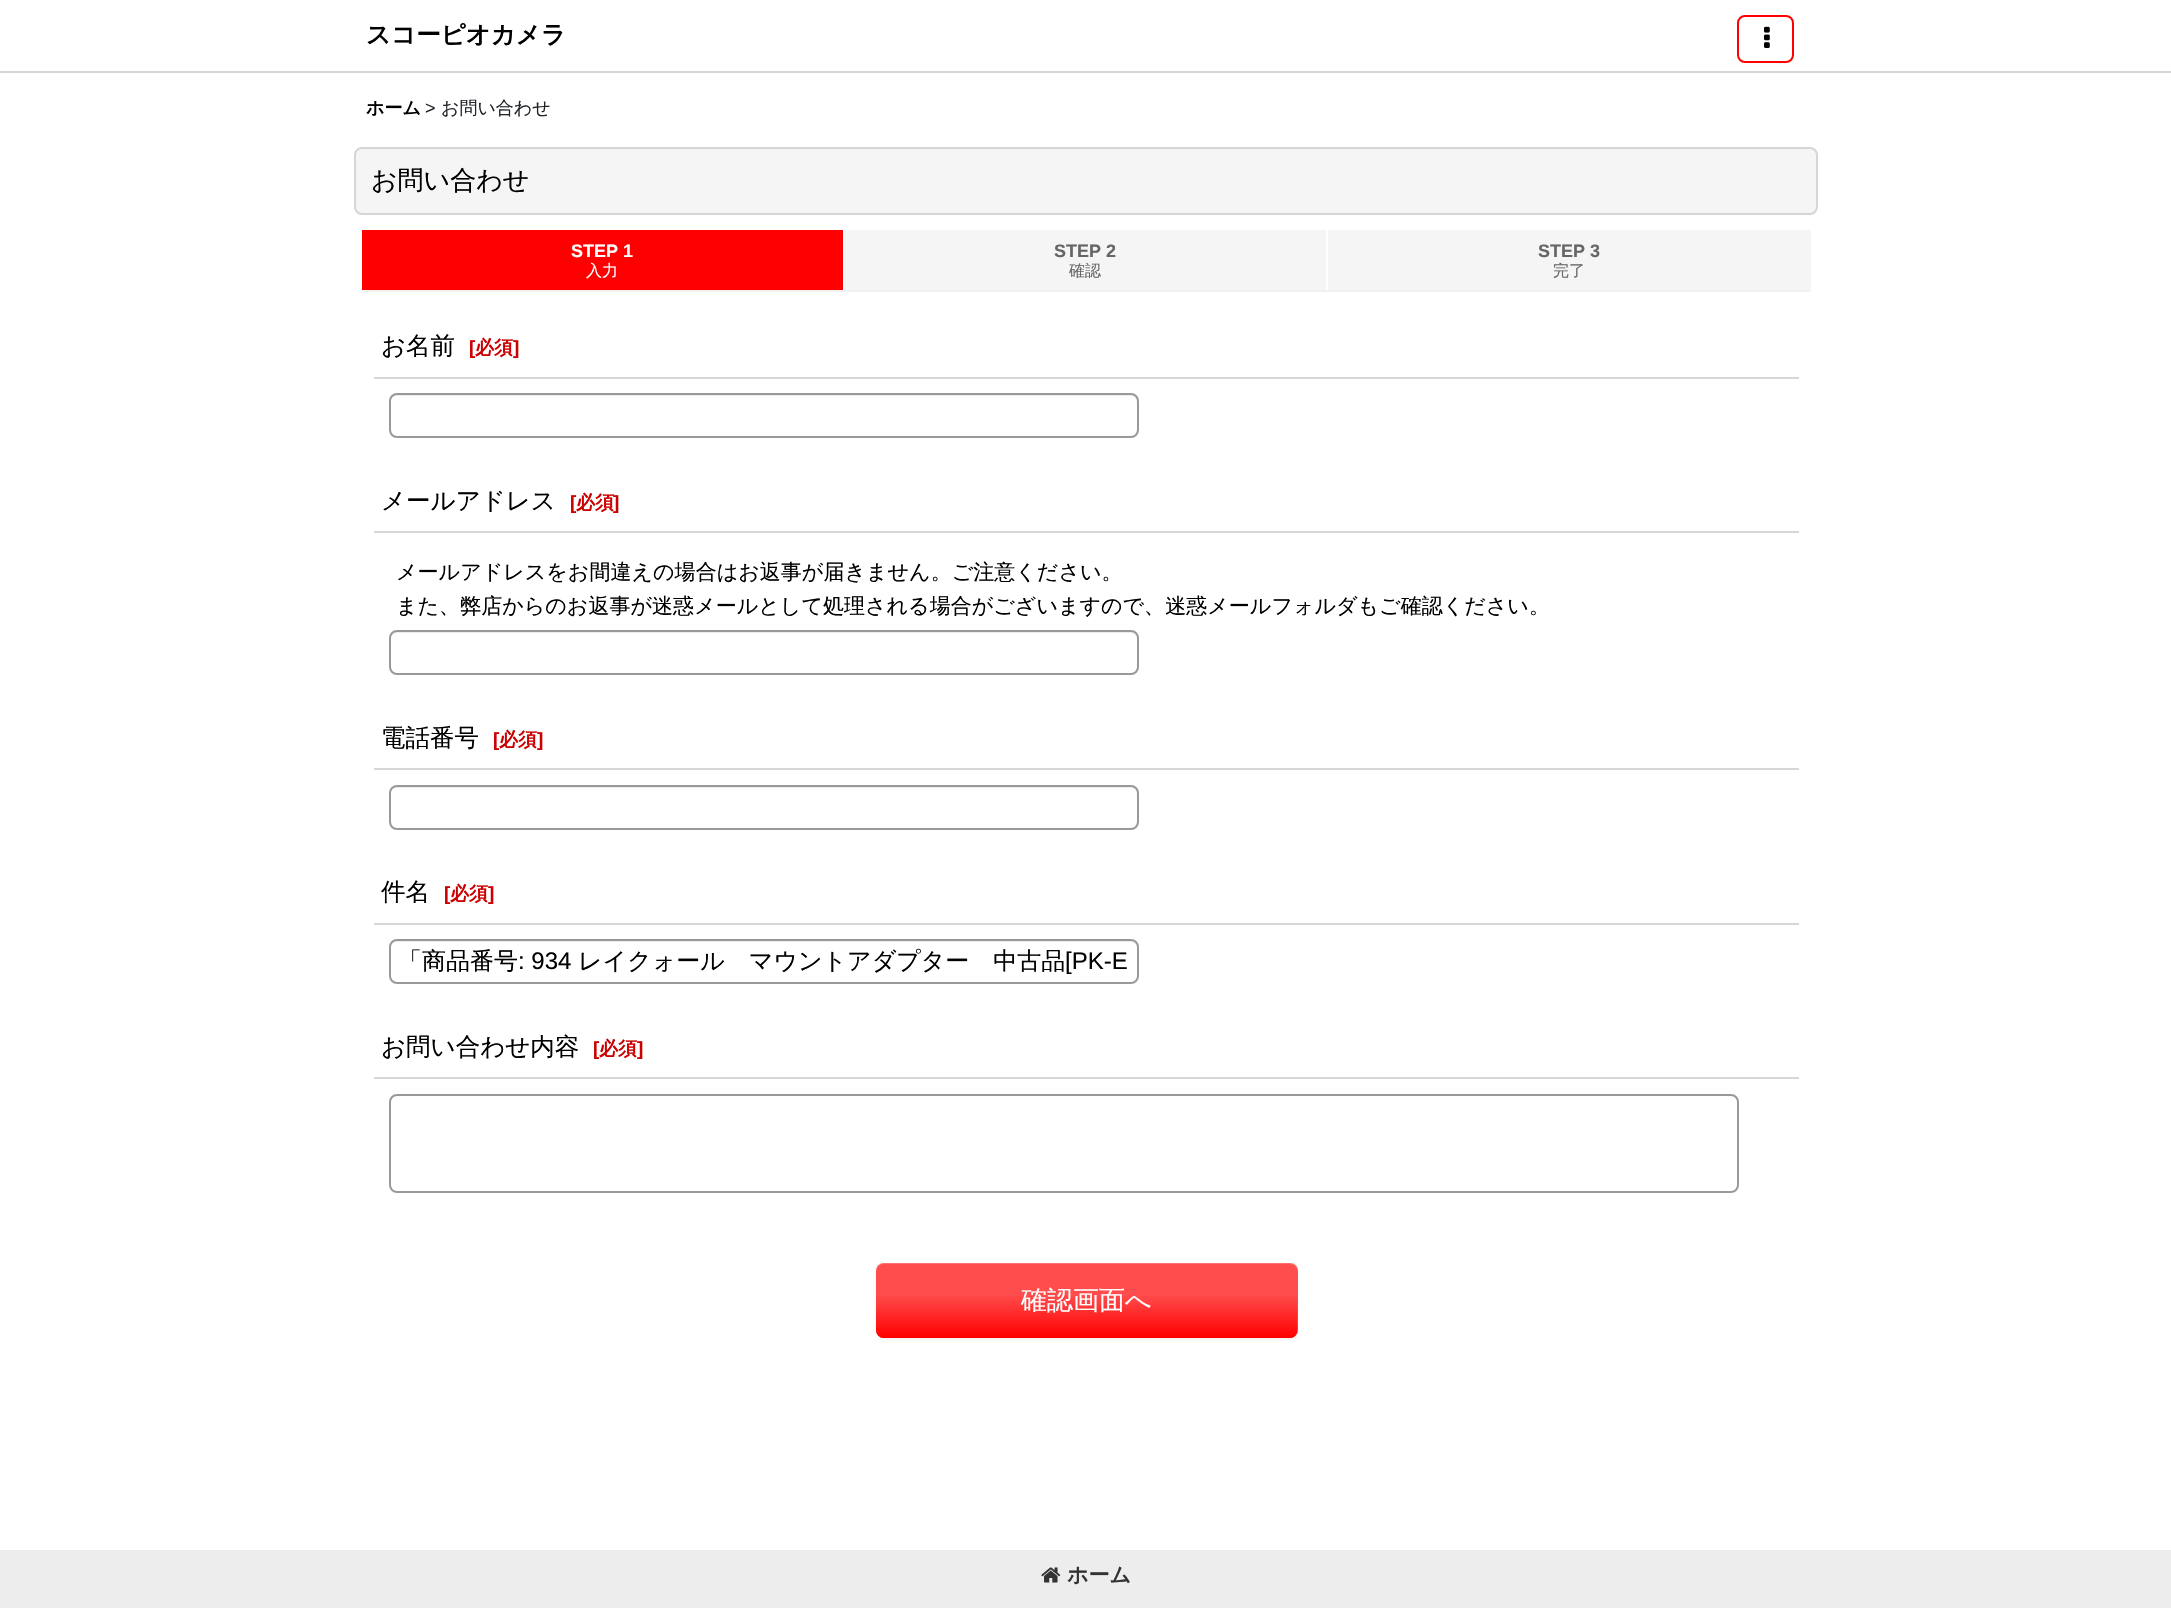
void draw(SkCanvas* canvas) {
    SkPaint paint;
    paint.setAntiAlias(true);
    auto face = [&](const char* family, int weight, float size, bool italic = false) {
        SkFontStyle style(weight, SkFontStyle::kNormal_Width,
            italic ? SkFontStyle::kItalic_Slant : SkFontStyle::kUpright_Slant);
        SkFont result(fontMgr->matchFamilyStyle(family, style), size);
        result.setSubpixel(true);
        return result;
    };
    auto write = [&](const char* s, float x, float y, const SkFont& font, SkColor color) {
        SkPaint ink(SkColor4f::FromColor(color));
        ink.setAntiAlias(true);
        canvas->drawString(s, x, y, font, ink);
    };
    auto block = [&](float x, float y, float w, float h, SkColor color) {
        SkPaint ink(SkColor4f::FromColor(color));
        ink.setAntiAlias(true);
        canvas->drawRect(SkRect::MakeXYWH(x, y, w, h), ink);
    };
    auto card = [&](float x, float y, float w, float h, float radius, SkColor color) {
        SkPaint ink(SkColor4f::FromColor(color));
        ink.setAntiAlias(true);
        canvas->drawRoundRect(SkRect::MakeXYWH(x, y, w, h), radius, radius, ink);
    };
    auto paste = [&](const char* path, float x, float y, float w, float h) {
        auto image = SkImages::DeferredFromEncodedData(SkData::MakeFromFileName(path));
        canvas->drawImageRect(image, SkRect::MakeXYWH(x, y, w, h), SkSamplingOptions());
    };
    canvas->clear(SK_ColorWHITE);
    block(0, 71, 2171, 2, SkColorSetRGB(214, 214, 214));
    auto kFont1 = face("WenQuanYi Zen Hei", 700, 24.5f);
    write("スコーピオカメラ", 366, 43, kFont1, SK_ColorBLACK);
    paint.setStyle(SkPaint::kStroke_Style);
    paint.setStrokeWidth(2);
    paint.setColor(SkColorSetRGB(255, 0, 0));
    canvas->drawRoundRect(SkRect::MakeXYWH(1738, 16, 55, 46), 7, 7, paint);
    paste("pic1.png", 1764, 26, 6, 22);
    auto kFont2 = face("WenQuanYi Zen Hei", 700, 18);
    write("ホーム", 366, 114, kFont2, SK_ColorBLACK);
    auto kFont3 = face("Liberation Sans", 400, 18);
    write(">", 425, 114, kFont3, SkColorSetRGB(33, 37, 41));
    auto kFont4 = face("WenQuanYi Zen Hei", 500, 18);
    write("お問い合わせ", 441, 114, kFont4, SkColorSetRGB(33, 37, 41));
    paint.setStyle(SkPaint::kFill_Style);
    paint.setColor(SkColorSetRGB(245, 245, 245));
    canvas->drawRoundRect(SkRect::MakeXYWH(355, 148, 1462, 66), 7, 7, paint);
    paint.setStyle(SkPaint::kStroke_Style);
    paint.setColor(SkColorSetRGB(214, 214, 214));
    canvas->drawRoundRect(SkRect::MakeXYWH(355, 148, 1462, 66), 7, 7, paint);
    auto kFont5 = face("WenQuanYi Zen Hei", 500, 26);
    write("お問い合わせ", 371, 189, kFont5, SK_ColorBLACK);
    block(362, 230, 481, 60, SkColorSetRGB(255, 0, 0));
    block(362, 290, 1449, 2, SkColorSetRGB(241, 241, 241));
    auto kFont6 = face("Liberation Sans", 700, 18);
    write("STEP 1", 571, 257, kFont6, SK_ColorWHITE);
    auto kFont7 = face("WenQuanYi Zen Hei", 500, 16);
    write("入力", 586, 276, kFont7, SK_ColorWHITE);
    block(845, 230, 481, 60, SkColorSetRGB(245, 245, 245));
    write("STEP 2", 1054, 257, kFont6, SkColorSetRGB(102, 102, 102));
    write("確認", 1069, 276, kFont7, SkColorSetRGB(102, 102, 102));
    block(1328, 230, 483, 60, SkColorSetRGB(245, 245, 245));
    write("STEP 3", 1538, 257, kFont6, SkColorSetRGB(102, 102, 102));
    write("完了", 1553, 276, kFont7, SkColorSetRGB(102, 102, 102));
    block(374, 377, 1425, 2, SkColorSetRGB(214, 214, 214));
    auto kFont8 = face("WenQuanYi Zen Hei", 500, 24.5f);
    write("お名前", 381, 354, kFont8, SK_ColorBLACK);
    auto kFont9 = face("Liberation Sans", 700, 19);
    write("[", 469, 354, kFont9, SkColorSetRGB(204, 0, 0));
    auto kFont10 = face("WenQuanYi Zen Hei", 700, 19);
    write("必須", 475, 354, kFont10, SkColorSetRGB(204, 0, 0));
    write("]", 513, 354, kFont9, SkColorSetRGB(204, 0, 0));
    paint.setStyle(SkPaint::kFill_Style);
    paint.setColor(SkColorSetRGB(236, 236, 236));
    canvas->drawPath(SkPathBuilder().moveTo(396, 396).lineTo(1131, 396).cubicTo(1134, 396, 1137, 399, 1137, 402).lineTo(1137, 401).cubicTo(1137, 398, 1134, 395, 1131, 395).lineTo(396, 395).cubicTo(393, 395, 390, 398, 390, 401).lineTo(390, 402).cubicTo(390, 399, 393, 396, 396, 396).close().detach(), paint);
    paint.setStyle(SkPaint::kStroke_Style);
    paint.setColor(SkColorSetRGB(153, 153, 153));
    canvas->drawRoundRect(SkRect::MakeXYWH(390, 394, 748, 43), 7, 7, paint);
    block(374, 531, 1425, 2, SkColorSetRGB(214, 214, 214));
    write("メールアドレス", 381, 509, kFont8, SK_ColorBLACK);
    write("[", 570, 509, kFont9, SkColorSetRGB(204, 0, 0));
    write("必須", 576, 509, kFont10, SkColorSetRGB(204, 0, 0));
    write("]", 613, 509, kFont9, SkColorSetRGB(204, 0, 0));
    auto kFont11 = face("WenQuanYi Zen Hei", 500, 21.05f);
    write("メールアドレスをお間違えの場合はお返事が届きません。ご注意ください。", 396, 579, kFont11, SK_ColorBLACK);
    write("また、弊店からのお返事が迷惑メールとして処理される場合がございますので、迷惑メールフォルダもご確認ください。", 396, 613, kFont11, SK_ColorBLACK);
    paint.setStyle(SkPaint::kFill_Style);
    paint.setColor(SkColorSetRGB(236, 236, 236));
    canvas->drawPath(SkPathBuilder().moveTo(396, 633).lineTo(1131, 633).cubicTo(1134, 633, 1137, 636, 1137, 639).lineTo(1137, 638).cubicTo(1137, 635, 1134, 632, 1131, 632).lineTo(396, 632).cubicTo(393, 632, 390, 635, 390, 638).lineTo(390, 639).cubicTo(390, 636, 393, 633, 396, 633).close().detach(), paint);
    paint.setStyle(SkPaint::kStroke_Style);
    paint.setColor(SkColorSetRGB(153, 153, 153));
    canvas->drawRoundRect(SkRect::MakeXYWH(390, 631, 748, 43), 7, 7, paint);
    block(374, 768, 1425, 2, SkColorSetRGB(214, 214, 214));
    write("電話番号", 381, 746, kFont8, SK_ColorBLACK);
    write("[", 493, 746, kFont9, SkColorSetRGB(204, 0, 0));
    write("必須", 499, 746, kFont10, SkColorSetRGB(204, 0, 0));
    write("]", 537, 746, kFont9, SkColorSetRGB(204, 0, 0));
    paint.setStyle(SkPaint::kFill_Style);
    paint.setColor(SkColorSetRGB(236, 236, 236));
    canvas->drawPath(SkPathBuilder().moveTo(396, 788).lineTo(1131, 788).cubicTo(1134, 788, 1137, 790, 1137, 794).lineTo(1137, 792).cubicTo(1137, 789, 1134, 786, 1131, 786).lineTo(396, 786).cubicTo(393, 786, 390, 789, 390, 792).lineTo(390, 794).cubicTo(390, 790, 393, 788, 396, 788).close().detach(), paint);
    paint.setStyle(SkPaint::kStroke_Style);
    paint.setColor(SkColorSetRGB(153, 153, 153));
    canvas->drawRoundRect(SkRect::MakeXYWH(390, 786, 748, 43), 7, 7, paint);
    block(374, 923, 1425, 2, SkColorSetRGB(214, 214, 214));
    write("件名", 381, 900, kFont8, SK_ColorBLACK);
    write("[", 444, 900, kFont9, SkColorSetRGB(204, 0, 0));
    write("必須", 450, 900, kFont10, SkColorSetRGB(204, 0, 0));
    write("]", 488, 900, kFont9, SkColorSetRGB(204, 0, 0));
    paint.setStyle(SkPaint::kFill_Style);
    paint.setColor(SkColorSetRGB(236, 236, 236));
    canvas->drawPath(SkPathBuilder().moveTo(396, 942).lineTo(1131, 942).cubicTo(1134, 942, 1137, 945, 1137, 948).lineTo(1137, 947).cubicTo(1137, 944, 1134, 941, 1131, 941).lineTo(396, 941).cubicTo(393, 941, 390, 944, 390, 947).lineTo(390, 948).cubicTo(390, 945, 393, 942, 396, 942).close().detach(), paint);
    paint.setStyle(SkPaint::kStroke_Style);
    paint.setColor(SkColorSetRGB(153, 153, 153));
    canvas->drawRoundRect(SkRect::MakeXYWH(390, 940, 748, 43), 7, 7, paint);
    auto kFont12 = face("WenQuanYi Zen Hei", 500, 24);
    write("「商品番号", 398, 969, kFont12, SK_ColorBLACK);
    auto kFont13 = face("Liberation Sans", 400, 24);
    write(": 934", 518, 969, kFont13, SK_ColorBLACK);
    write("レイクォール　マウントアダプター　中古品", 578, 969, kFont12, SK_ColorBLACK);
    write("[PK-E", 1065, 969, kFont13, SK_ColorBLACK);
    block(374, 1077, 1425, 2, SkColorSetRGB(214, 214, 214));
    write("お問い合わせ内容", 381, 1055, kFont8, SK_ColorBLACK);
    write("[", 593, 1055, kFont9, SkColorSetRGB(204, 0, 0));
    write("必須", 599, 1055, kFont10, SkColorSetRGB(204, 0, 0));
    write("]", 637, 1055, kFont9, SkColorSetRGB(204, 0, 0));
    canvas->drawRoundRect(SkRect::MakeXYWH(390, 1095, 1348, 97), 7, 7, paint);
    paint.setStyle(SkPaint::kFill_Style);
    paint.setColor(SkColorSetARGB(13, 0, 0, 0));
    paint.setMaskFilter(SkMaskFilter::MakeBlur(kNormal_SkBlurStyle, 1.5f));
    canvas->drawRoundRect(SkRect::MakeXYWH(876, 1265, 422, 75), 8, 8, paint);
    paint.setMaskFilter(nullptr);
    card(876, 1263, 422, 75, 8, SkColorSetRGB(255, 77, 77));
    paste("pic2.png", 876, 1296, 422, 42);
    paint.setColor(SkColorSetARGB(51, 255, 255, 255));
    canvas->drawPath(SkPathBuilder().moveTo(884, 1264).lineTo(1290, 1264).cubicTo(1294, 1264, 1298, 1268, 1298, 1272).lineTo(1298, 1271).cubicTo(1298, 1267, 1294, 1263, 1290, 1263).lineTo(884, 1263).cubicTo(880, 1263, 876, 1267, 876, 1271).lineTo(876, 1272).cubicTo(876, 1268, 879, 1264, 884, 1264).close().detach(), paint);
    write("確認画面へ", 1021, 1309, kFont5, SK_ColorWHITE);
    block(0, 1550, 2171, 58, SkColorSetRGB(237, 237, 237));
    paste("pic3.png", 1041, 1567, 20, 16);
    auto kFont14 = face("WenQuanYi Zen Hei", 700, 21.05f);
    write("ホーム", 1067, 1582, kFont14, SkColorSetRGB(51, 51, 51));
}
